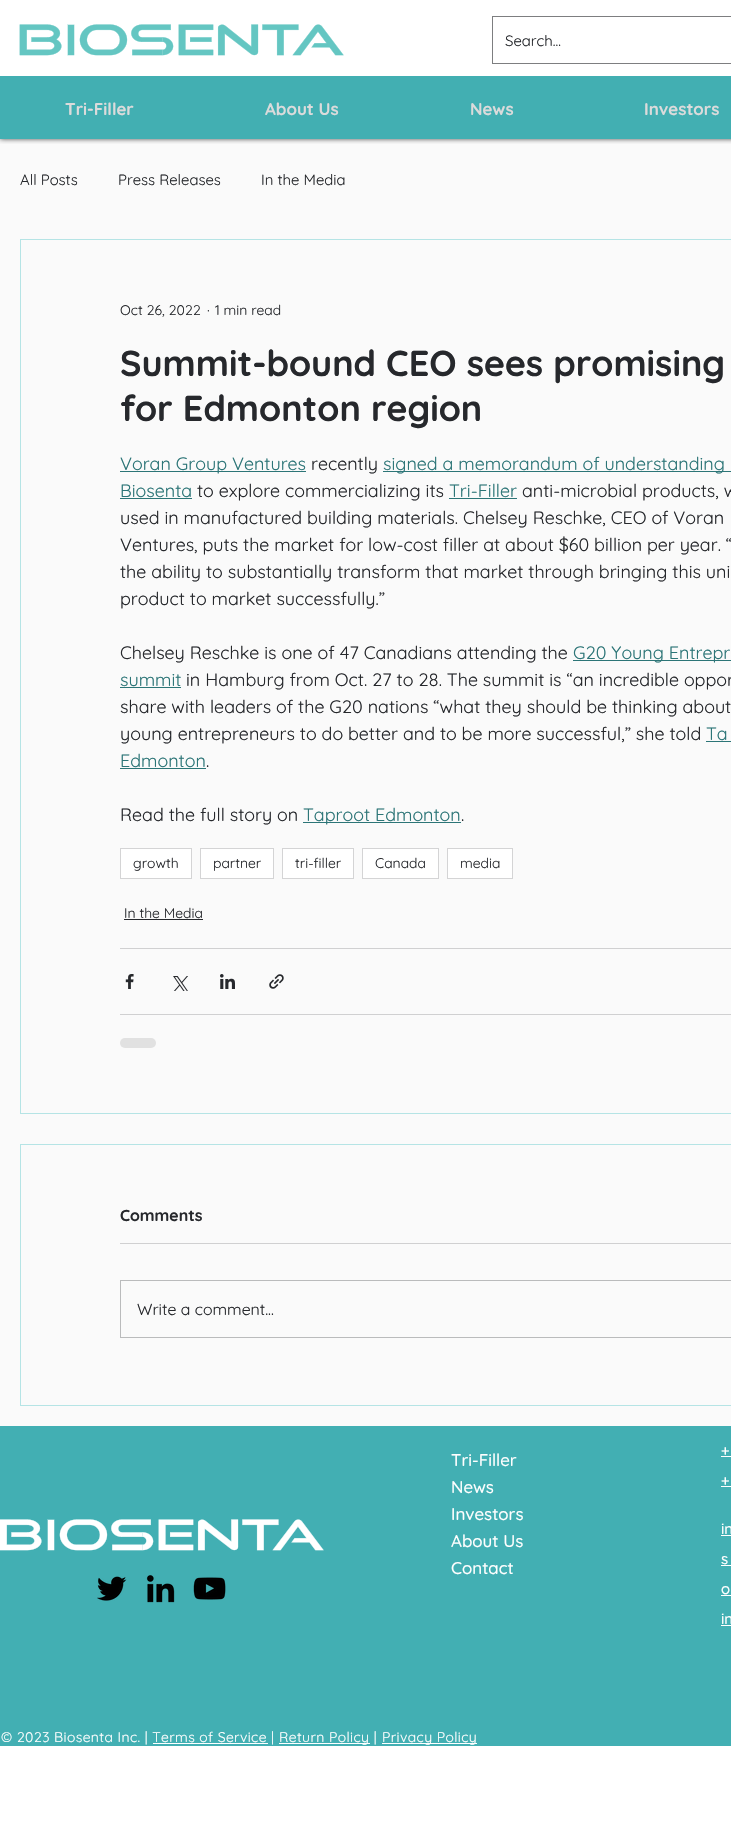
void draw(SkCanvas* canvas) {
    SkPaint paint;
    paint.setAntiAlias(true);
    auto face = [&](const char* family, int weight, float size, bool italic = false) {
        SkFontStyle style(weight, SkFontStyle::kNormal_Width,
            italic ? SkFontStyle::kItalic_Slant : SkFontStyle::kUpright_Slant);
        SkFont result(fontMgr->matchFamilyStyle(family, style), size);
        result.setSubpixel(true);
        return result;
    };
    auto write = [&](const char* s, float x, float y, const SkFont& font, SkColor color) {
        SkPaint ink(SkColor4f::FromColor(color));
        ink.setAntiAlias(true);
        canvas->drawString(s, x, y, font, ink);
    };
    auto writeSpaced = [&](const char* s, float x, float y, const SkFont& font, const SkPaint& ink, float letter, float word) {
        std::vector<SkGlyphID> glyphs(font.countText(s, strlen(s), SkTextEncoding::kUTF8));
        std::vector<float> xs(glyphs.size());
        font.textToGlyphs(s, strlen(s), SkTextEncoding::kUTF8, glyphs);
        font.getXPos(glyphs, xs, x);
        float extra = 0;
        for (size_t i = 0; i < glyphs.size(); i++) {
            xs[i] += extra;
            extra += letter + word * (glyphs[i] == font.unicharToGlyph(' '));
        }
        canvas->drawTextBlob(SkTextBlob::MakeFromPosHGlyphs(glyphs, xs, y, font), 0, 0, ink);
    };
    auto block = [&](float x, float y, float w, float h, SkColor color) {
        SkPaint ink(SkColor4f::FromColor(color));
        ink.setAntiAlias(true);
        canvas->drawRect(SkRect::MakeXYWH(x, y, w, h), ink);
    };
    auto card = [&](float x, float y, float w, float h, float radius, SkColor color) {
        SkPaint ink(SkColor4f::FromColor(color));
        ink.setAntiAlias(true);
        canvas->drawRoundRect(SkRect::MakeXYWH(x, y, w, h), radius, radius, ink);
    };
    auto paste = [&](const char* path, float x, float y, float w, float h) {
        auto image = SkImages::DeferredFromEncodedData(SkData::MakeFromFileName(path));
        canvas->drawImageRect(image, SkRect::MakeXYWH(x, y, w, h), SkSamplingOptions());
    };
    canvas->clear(SK_ColorWHITE);
    block(0, 139, 731, 1287, SkColorSetRGB(250, 250, 250));
    canvas->save();
    canvas->clipRect(SkRect::MakeXYWH(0, 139, 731, 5));
    paint.setColor(SkColorSetARGB(179, 0, 0, 0));
    paint.setMaskFilter(SkMaskFilter::MakeBlur(kNormal_SkBlurStyle, 2.5f));
    canvas->drawRect(SkRect::MakeXYWH(0, 0, 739, 139), paint);
    paint.setMaskFilter(nullptr);
    canvas->restore();
    paste("pic1.png", 19, 24, 325, 32);
    paint.setStyle(SkPaint::kStroke_Style);
    paint.setStrokeWidth(1);
    paint.setColor(SkColorSetRGB(125, 126, 128));
    canvas->drawRect(SkRect::MakeXYWH(492.5f, 16.5f, 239, 47), paint);
    auto kFont1 = face("Quicksand", 400, 15);
    write("Search...", 505, 46, kFont1, SkColorSetRGB(38, 40, 44));
    block(0, 76, 731, 63, SkColorSetRGB(66, 175, 178));
    auto kFont2 = face("Quicksand", 700, 17);
    write("Tri-Filler", 65, 115, kFont2, SkColorSetRGB(219, 219, 219));
    write("About Us", 265, 115, kFont2, SkColorSetRGB(219, 219, 219));
    write("News", 470, 115, kFont2, SkColorSetRGB(219, 219, 219));
    write("Investors", 644, 115, kFont2, SkColorSetRGB(219, 219, 219));
    write("All Posts", 20, 185, kFont1, SkColorSetRGB(38, 40, 44));
    write("Press Releases", 118, 185, kFont1, SkColorSetRGB(38, 40, 44));
    write("In the Media", 261, 185, kFont1, SkColorSetRGB(38, 40, 44));
    paint.setColor(SkColorSetRGB(181, 228, 229));
    canvas->drawRect(SkRect::MakeXYWH(20.5f, 239.5f, 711, 874), paint);
    auto kFont3 = face("Quicksand", 400, 14);
    write("Oct 26, 2022", 120, 315, kFont3, SkColorSetRGB(38, 40, 44));
    write("·", 207, 315, kFont3, SkColorSetRGB(38, 40, 44));
    write("1 min read", 215, 315, kFont3, SkColorSetRGB(38, 40, 44));
    auto kFont4 = face("Quicksand", 700, 36);
    write("Summit-bound CEO sees promising", 120, 376, kFont4, SkColorSetRGB(38, 40, 44));
    write("for Edmonton region", 120, 421, kFont4, SkColorSetRGB(38, 40, 44));
    block(120, 471, 186, 1, SkColorSetRGB(44, 117, 119));
    auto kFont5 = face("Quicksand", 400, 18);
    write("Voran Group Ventures", 120, 470, kFont5, SkColorSetRGB(44, 117, 119));
    write("recently", 311, 470, kFont5, SkColorSetRGB(38, 40, 44));
    block(383, 471, 348, 1, SkColorSetRGB(44, 117, 119));
    write("signed a memorandum of understanding", 383, 470, kFont5, SkColorSetRGB(44, 117, 119));
    write("Biosenta", 120, 497, kFont5, SkColorSetRGB(44, 117, 119));
    block(120, 498, 72, 1, SkColorSetRGB(44, 117, 119));
    write("to explore commercializing its", 197, 497, kFont5, SkColorSetRGB(38, 40, 44));
    write("Tri-Filler", 449, 497, kFont5, SkColorSetRGB(44, 117, 119));
    block(449, 498, 68, 1, SkColorSetRGB(44, 117, 119));
    write("anti-microbial products, w", 522, 497, kFont5, SkColorSetRGB(38, 40, 44));
    write("used in manufactured building materials. Chelsey Reschke, CEO of Voran", 120, 524, kFont5, SkColorSetRGB(38, 40, 44));
    write("Ventures, puts the market for low-cost filler at about $60 billion per year. “", 120, 551, kFont5, SkColorSetRGB(38, 40, 44));
    write("the ability to substantially transform that market through bringing this uni", 120, 578, kFont5, SkColorSetRGB(38, 40, 44));
    write("product to market successfully.”", 120, 605, kFont5, SkColorSetRGB(38, 40, 44));
    write("Chelsey Reschke is one of 47 Canadians attending the", 120, 659, kFont5, SkColorSetRGB(38, 40, 44));
    block(573, 660, 158, 1, SkColorSetRGB(44, 117, 119));
    write("G20 Young Entrepr", 573, 659, kFont5, SkColorSetRGB(44, 117, 119));
    write("summit", 120, 686, kFont5, SkColorSetRGB(44, 117, 119));
    block(120, 687, 61, 1, SkColorSetRGB(44, 117, 119));
    write("in Hamburg from Oct. 27 to 28. The summit is “an incredible oppor", 186, 686, kFont5, SkColorSetRGB(38, 40, 44));
    write("share with leaders of the G20 nations “what they should be thinking about", 120, 713, kFont5, SkColorSetRGB(38, 40, 44));
    write("young entrepreneurs to do better and to be more successful,” she told", 120, 740, kFont5, SkColorSetRGB(38, 40, 44));
    write("Ta", 706, 740, kFont5, SkColorSetRGB(44, 117, 119));
    block(706, 741, 25, 1, SkColorSetRGB(44, 117, 119));
    write("Edmonton", 120, 767, kFont5, SkColorSetRGB(44, 117, 119));
    block(120, 768, 86, 1, SkColorSetRGB(44, 117, 119));
    write(".", 206, 767, kFont5, SkColorSetRGB(38, 40, 44));
    write("Read the full story on", 120, 821, kFont5, SkColorSetRGB(38, 40, 44));
    block(303, 822, 158, 1, SkColorSetRGB(44, 117, 119));
    write("Taproot Edmonton", 303, 821, kFont5, SkColorSetRGB(44, 117, 119));
    write(".", 461, 821, kFont5, SkColorSetRGB(38, 40, 44));
    paint.setStyle(SkPaint::kFill_Style);
    paint.setColor(SK_ColorWHITE);
    canvas->drawRect(SkRect::MakeXYWH(120.5f, 848.5f, 71, 30), paint);
    paint.setStyle(SkPaint::kStroke_Style);
    paint.setColor(SkColorSetRGB(212, 212, 213));
    canvas->drawRect(SkRect::MakeXYWH(120.5f, 848.5f, 71, 30), paint);
    write("growth", 133, 868, kFont3, SkColorSetRGB(38, 40, 44));
    paint.setStyle(SkPaint::kFill_Style);
    paint.setColor(SK_ColorWHITE);
    canvas->drawRect(SkRect::MakeXYWH(200.5f, 848.5f, 73, 30), paint);
    paint.setStyle(SkPaint::kStroke_Style);
    paint.setColor(SkColorSetRGB(212, 212, 213));
    canvas->drawRect(SkRect::MakeXYWH(200.5f, 848.5f, 73, 30), paint);
    write("partner", 213, 868, kFont3, SkColorSetRGB(38, 40, 44));
    paint.setStyle(SkPaint::kFill_Style);
    paint.setColor(SK_ColorWHITE);
    canvas->drawRect(SkRect::MakeXYWH(282.5f, 848.5f, 71, 30), paint);
    paint.setStyle(SkPaint::kStroke_Style);
    paint.setColor(SkColorSetRGB(212, 212, 213));
    canvas->drawRect(SkRect::MakeXYWH(282.5f, 848.5f, 71, 30), paint);
    write("tri-filler", 295, 868, kFont3, SkColorSetRGB(38, 40, 44));
    paint.setStyle(SkPaint::kFill_Style);
    paint.setColor(SK_ColorWHITE);
    canvas->drawRect(SkRect::MakeXYWH(362.5f, 848.5f, 76, 30), paint);
    paint.setStyle(SkPaint::kStroke_Style);
    paint.setColor(SkColorSetRGB(212, 212, 213));
    canvas->drawRect(SkRect::MakeXYWH(362.5f, 848.5f, 76, 30), paint);
    write("Canada", 375, 868, kFont3, SkColorSetRGB(38, 40, 44));
    paint.setStyle(SkPaint::kFill_Style);
    paint.setColor(SK_ColorWHITE);
    canvas->drawRect(SkRect::MakeXYWH(447.5f, 848.5f, 65, 30), paint);
    paint.setStyle(SkPaint::kStroke_Style);
    paint.setColor(SkColorSetRGB(212, 212, 213));
    canvas->drawRect(SkRect::MakeXYWH(447.5f, 848.5f, 65, 30), paint);
    write("media", 460, 868, kFont3, SkColorSetRGB(38, 40, 44));
    write("In the Media", 124, 918, kFont3, SkColorSetRGB(38, 40, 44));
    block(124, 919, 79, 1, SkColorSetRGB(38, 40, 44));
    block(120, 948, 611, 1, SkColorSetRGB(208, 208, 209));
    paste("pic2.png", 125, 974, 9, 15);
    paste("pic3.png", 173, 976, 15, 15);
    paste("pic4.png", 220, 974, 15, 15);
    paste("pic5.png", 269, 974, 15, 15);
    block(120, 1014, 611, 1, SkColorSetRGB(208, 208, 209));
    card(120, 1038, 36, 10, 5, SkColorSetRGB(225, 225, 225));
    paint.setColor(SkColorSetRGB(181, 228, 229));
    canvas->drawRect(SkRect::MakeXYWH(20.5f, 1144.5f, 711, 261), paint);
    auto kFont6 = face("Quicksand", 700, 16);
    write("Comments", 120, 1221, kFont6, SkColorSetRGB(38, 40, 44));
    block(120, 1243, 611, 1, SkColorSetRGB(208, 208, 209));
    paint.setColor(SkColorSetRGB(186, 187, 188));
    canvas->drawRect(SkRect::MakeXYWH(120.5f, 1280.5f, 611, 57), paint);
    auto kFont7 = face("Quicksand", 400, 16);
    write("Write a comment...", 137, 1315, kFont7, SkColorSetRGB(38, 40, 44));
    block(0, 1426, 731, 320, SkColorSetRGB(66, 175, 179));
    paste("pic6.png", 0, 1519, 324, 32);
    auto kFont8 = face("Quicksand", 500, 17);
    write("Tri-Filler", 451, 1466, kFont8, SK_ColorWHITE);
    write("News", 451, 1493, kFont8, SK_ColorWHITE);
    write("Investors", 451, 1520, kFont8, SK_ColorWHITE);
    write("About Us", 451, 1547, kFont8, SK_ColorWHITE);
    write("Contact", 451, 1574, kFont8, SK_ColorWHITE);
    auto kFont9 = face("Quicksand", 500, 15);
    write("+", 721, 1455, kFont9, SK_ColorWHITE);
    block(721, 1456, 10, 1, SK_ColorWHITE);
    write("+", 721, 1485, kFont9, SK_ColorWHITE);
    block(721, 1486, 10, 1, SK_ColorWHITE);
    write("in", 721, 1534, kFont9, SK_ColorWHITE);
    block(721, 1535, 10, 1, SK_ColorWHITE);
    write("s", 721, 1564, kFont9, SK_ColorWHITE);
    block(721, 1565, 10, 1, SK_ColorWHITE);
    write("o", 721, 1594, kFont9, SK_ColorWHITE);
    block(721, 1595, 10, 1, SK_ColorWHITE);
    write("in", 721, 1624, kFont9, SK_ColorWHITE);
    block(721, 1625, 10, 1, SK_ColorWHITE);
    paste("pic7.png", 97, 1576, 30, 25);
    paste("pic8.png", 146, 1575, 29, 28);
    paste("pic9.png", 193, 1577, 33, 23);
    paint.setStyle(SkPaint::kFill_Style);
    paint.setColor(SK_ColorWHITE);
    writeSpaced("© 2023 Biosenta Inc. | Terms of Service |", 1, 1742, kFont3, paint, 0.4f, 0);
    block(153, 1743, 115, 1, SK_ColorWHITE);
    block(279, 1743, 91, 1, SK_ColorWHITE);
    writeSpaced("Return Policy |", 279, 1742, kFont3, paint, 0.4f, 0);
    block(382, 1743, 95, 1, SK_ColorWHITE);
    writeSpaced("Privacy Policy", 382, 1742, kFont3, paint, 0.4f, 0);
}
